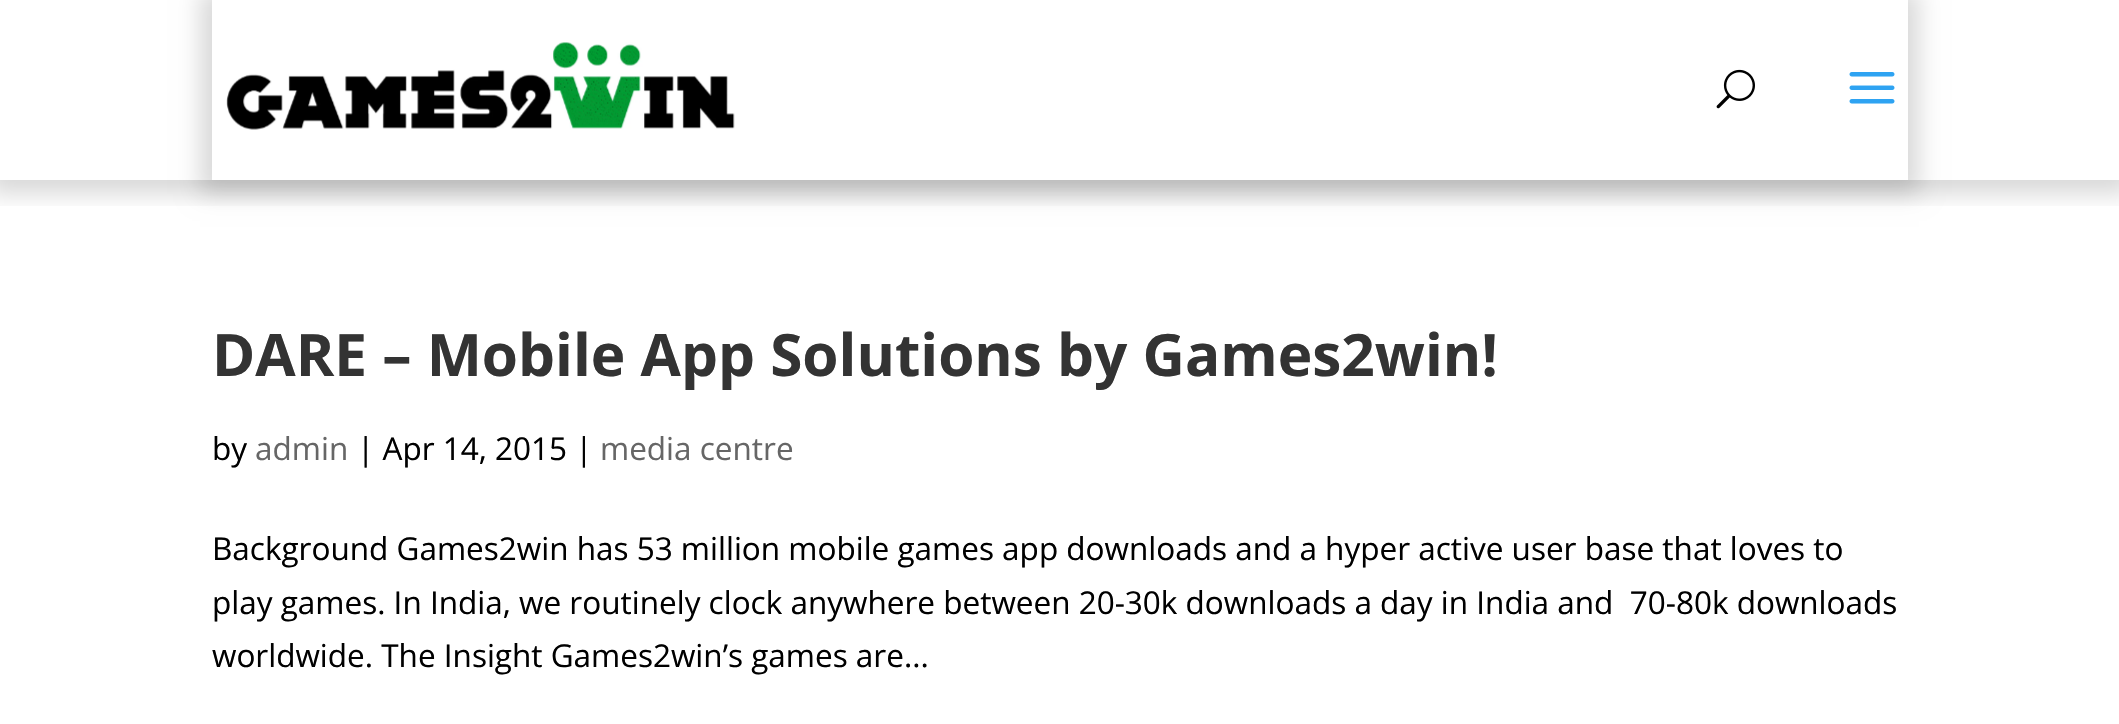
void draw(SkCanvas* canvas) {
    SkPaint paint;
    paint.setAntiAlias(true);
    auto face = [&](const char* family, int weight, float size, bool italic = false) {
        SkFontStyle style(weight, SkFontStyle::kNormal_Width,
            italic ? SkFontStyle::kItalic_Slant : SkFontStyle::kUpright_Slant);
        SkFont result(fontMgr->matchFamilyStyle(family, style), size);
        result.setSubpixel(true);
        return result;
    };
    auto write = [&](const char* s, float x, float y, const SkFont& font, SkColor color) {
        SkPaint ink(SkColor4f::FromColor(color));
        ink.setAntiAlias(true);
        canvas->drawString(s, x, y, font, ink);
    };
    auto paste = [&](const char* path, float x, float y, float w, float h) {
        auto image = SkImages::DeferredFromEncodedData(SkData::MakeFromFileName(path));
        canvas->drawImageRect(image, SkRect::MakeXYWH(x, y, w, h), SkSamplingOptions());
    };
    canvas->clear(SK_ColorWHITE);
    canvas->save();
    canvas->clipRect(SkRect::MakeXYWH(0, 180, 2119, 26));
    paint.setColor(SkColorSetARGB(38, 0, 0, 0));
    paint.setMaskFilter(SkMaskFilter::MakeBlur(kNormal_SkBlurStyle, 11));
    canvas->drawRect(SkRect::MakeXYWH(-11, -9, 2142, 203), paint);
    paint.setMaskFilter(nullptr);
    canvas->restore();
    canvas->save();
    canvas->clipPath(SkPathBuilder(SkPathFillType::kEvenOdd).moveTo(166, 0).lineTo(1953, 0).lineTo(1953, 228).lineTo(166, 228).close().moveTo(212, 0).lineTo(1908, 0).lineTo(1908, 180).lineTo(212, 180).close().detach(), true);
    paint.setMaskFilter(SkMaskFilter::MakeBlur(kNormal_SkBlurStyle, 11));
    canvas->drawRect(SkRect::MakeXYWH(200, -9, 1719, 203), paint);
    paint.setMaskFilter(nullptr);
    canvas->restore();
    paste("pic1.png", 226, 42, 509, 88);
    paste("pic2.png", 1716, 69, 39, 40);
    paste("pic3.png", 1849, 72, 46, 32);
    auto kFont1 = face("Open Sans", 700, 58.5f);
    write("DARE – Mobile App Solutions by Games2win!", 212, 376, kFont1, SkColorSetRGB(51, 51, 51));
    auto kFont2 = face("Open Sans", 400, 31.5f);
    write("by", 212, 460, kFont2, SK_ColorBLACK);
    write("admin", 255, 460, kFont2, SkColorSetRGB(102, 102, 102));
    write("| Apr 14, 2015 |", 357, 460, kFont2, SK_ColorBLACK);
    write("media centre", 600, 460, kFont2, SkColorSetRGB(102, 102, 102));
    write("Background Games2win has 53 million mobile games app downloads and a hyper active user base that loves to", 212, 560, kFont2, SK_ColorBLACK);
    write("play games. In India, we routinely clock anywhere between 20-30k downloads a day in India and  70-80k downloads", 212, 614, kFont2, SK_ColorBLACK);
    write("worldwide. The Insight Games2win’s games are...", 212, 667, kFont2, SK_ColorBLACK);
}
